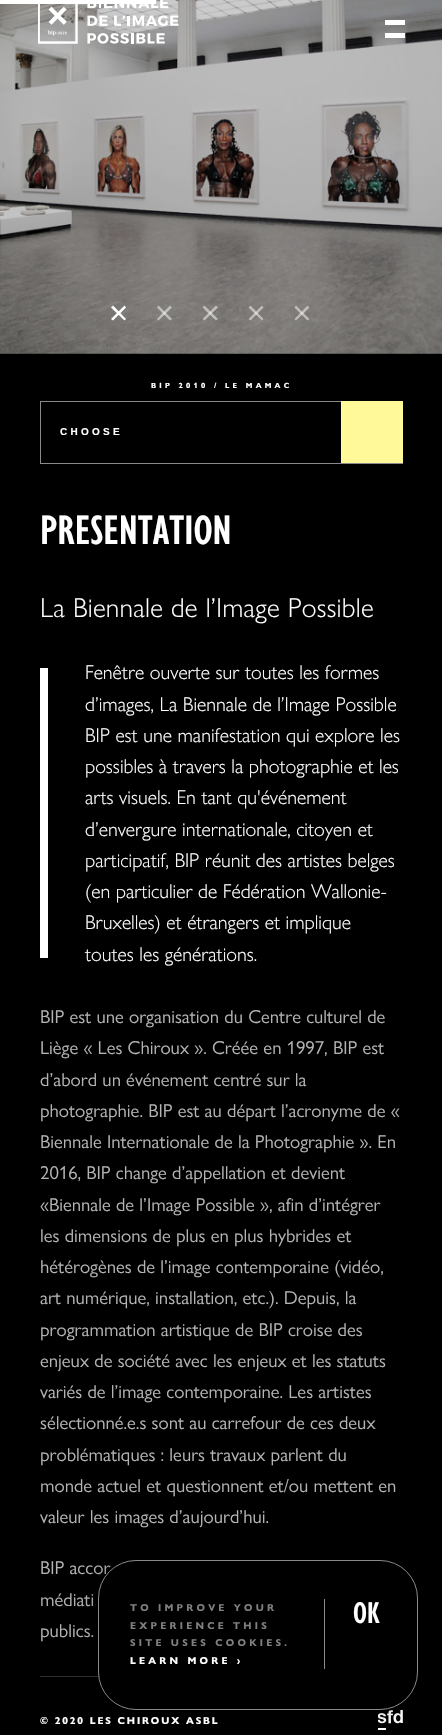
void draw(SkCanvas* canvas) {
    SkPaint paint;
    paint.setAntiAlias(true);
    auto face = [&](const char* family, int weight, float size, bool italic = false) {
        SkFontStyle style(weight, SkFontStyle::kNormal_Width,
            italic ? SkFontStyle::kItalic_Slant : SkFontStyle::kUpright_Slant);
        SkFont result(fontMgr->matchFamilyStyle(family, style), size);
        result.setSubpixel(true);
        return result;
    };
    auto write = [&](const char* s, float x, float y, const SkFont& font, SkColor color) {
        SkPaint ink(SkColor4f::FromColor(color));
        ink.setAntiAlias(true);
        canvas->drawString(s, x, y, font, ink);
    };
    auto writeSpaced = [&](const char* s, float x, float y, const SkFont& font, const SkPaint& ink, float letter, float word) {
        std::vector<SkGlyphID> glyphs(font.countText(s, strlen(s), SkTextEncoding::kUTF8));
        std::vector<float> xs(glyphs.size());
        font.textToGlyphs(s, strlen(s), SkTextEncoding::kUTF8, glyphs);
        font.getXPos(glyphs, xs, x);
        float extra = 0;
        for (size_t i = 0; i < glyphs.size(); i++) {
            xs[i] += extra;
            extra += letter + word * (glyphs[i] == font.unicharToGlyph(' '));
        }
        canvas->drawTextBlob(SkTextBlob::MakeFromPosHGlyphs(glyphs, xs, y, font), 0, 0, ink);
    };
    auto block = [&](float x, float y, float w, float h, SkColor color) {
        SkPaint ink(SkColor4f::FromColor(color));
        ink.setAntiAlias(true);
        canvas->drawRect(SkRect::MakeXYWH(x, y, w, h), ink);
    };
    auto paste = [&](const char* path, float x, float y, float w, float h) {
        auto image = SkImages::DeferredFromEncodedData(SkData::MakeFromFileName(path));
        canvas->drawImageRect(image, SkRect::MakeXYWH(x, y, w, h), SkSamplingOptions());
    };
    canvas->clear(SK_ColorBLACK);
    paste("pic2.png", 0, 0, 442, 354);
    paste("pic1.png", 38, 0, 141, 44);
    block(0, 0, 156, 4, SK_ColorWHITE);
    block(385, 20, 20, 5, SK_ColorWHITE);
    block(385, 33, 20, 5, SK_ColorWHITE);
    paint.setColor(SK_ColorWHITE);
    canvas->drawPath(SkPathBuilder().moveTo(111, 307.5f).lineTo(113, 305.5f).lineTo(126, 319).lineTo(124.5f, 320.5f).close().detach(), paint);
    canvas->drawPath(SkPathBuilder().moveTo(124.5f, 305.5f).lineTo(126, 307.5f).lineTo(113, 320.5f).lineTo(111, 319).close().detach(), paint);
    paint.setColor(SkColorSetARGB(128, 255, 255, 255));
    canvas->drawPath(SkPathBuilder().moveTo(157, 307.5f).lineTo(158.5f, 305.5f).lineTo(172, 319).lineTo(170, 320.5f).close().detach(), paint);
    canvas->drawPath(SkPathBuilder().moveTo(170, 305.5f).lineTo(172, 307.5f).lineTo(158.5f, 320.5f).lineTo(157, 319).close().moveTo(202.5f, 307.5f).lineTo(204.5f, 305.5f).lineTo(218, 319).lineTo(216, 320.5f).close().detach(), paint);
    canvas->drawPath(SkPathBuilder().moveTo(216, 305.5f).lineTo(218, 307.5f).lineTo(204.5f, 320.5f).lineTo(202.5f, 319).close().moveTo(248.5f, 307.5f).lineTo(250.5f, 305.5f).lineTo(263.5f, 319).lineTo(262, 320.5f).close().detach(), paint);
    canvas->drawPath(SkPathBuilder().moveTo(262, 305.5f).lineTo(263.5f, 307.5f).lineTo(250.5f, 320.5f).lineTo(248.5f, 319).close().moveTo(294.5f, 307.5f).lineTo(296, 305.5f).lineTo(309.5f, 319).lineTo(307.5f, 320.5f).close().detach(), paint);
    canvas->drawPath(SkPathBuilder().moveTo(307.5f, 305.5f).lineTo(309.5f, 307.5f).lineTo(296, 320.5f).lineTo(294.5f, 319).close().detach(), paint);
    auto kFont1 = face("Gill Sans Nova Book", 700, 7.5f);
    paint.setColor(SK_ColorWHITE);
    writeSpaced("BIP 2010 / LE MAMAC", 151, 388, kFont1, paint, 3.25f, 0);
    paint.setStyle(SkPaint::kStroke_Style);
    paint.setStrokeWidth(1);
    paint.setColor(SkColorSetRGB(138, 138, 138));
    canvas->drawRect(SkRect::MakeXYWH(40.5f, 401.5f, 362, 62), paint);
    auto kFont2 = face("Liberation Sans", 700, 10);
    paint.setStyle(SkPaint::kFill_Style);
    paint.setColor(SK_ColorWHITE);
    writeSpaced("CHOOSE", 60, 435, kFont2, paint, 3.25f, 0);
    block(341, 401, 62, 62, SkColorSetRGB(255, 249, 153));
    auto kFont3 = face("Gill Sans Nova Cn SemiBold", 600, 42.5f);
    write("PRESENTATION", 40, 544, kFont3, SK_ColorWHITE);
    auto kFont4 = face("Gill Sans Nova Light", 300, 27.5f);
    writeSpaced("La Biennale de l’Image Possible", 40, 617, kFont4, paint, 0.25f, 0);
    block(40, 668, 8, 290, SK_ColorWHITE);
    auto kFont5 = face("Gill Sans Nova Light", 300, 20);
    write("Fenêtre ouverte sur toutes les formes", 85, 679, kFont5, SK_ColorWHITE);
    write("d’images, La Biennale de l’Image Possible", 85, 711, kFont5, SK_ColorWHITE);
    write("BIP est une manifestation qui explore les", 85, 742, kFont5, SK_ColorWHITE);
    write("possibles à travers la photographie et les", 85, 773, kFont5, SK_ColorWHITE);
    write("arts visuels. En tant qu'événement", 85, 804, kFont5, SK_ColorWHITE);
    write("d’envergure internationale, citoyen et", 85, 836, kFont5, SK_ColorWHITE);
    write("participatif, BIP réunit des artistes belges", 85, 867, kFont5, SK_ColorWHITE);
    write("(en particulier de Fédération Wallonie-", 85, 898, kFont5, SK_ColorWHITE);
    write("Bruxelles) et étrangers et implique", 85, 929, kFont5, SK_ColorWHITE);
    write("toutes les générations.", 85, 961, kFont5, SK_ColorWHITE);
    auto kFont6 = face("Gill Sans Nova Book", 400, 18.75f);
    write("BIP est une organisation du Centre culturel de", 40, 1023, kFont6, SkColorSetRGB(179, 179, 179));
    write("Liège « Les Chiroux ». Créée en 1997, BIP est", 40, 1054, kFont6, SkColorSetRGB(179, 179, 179));
    write("d’abord un événement centré sur la", 40, 1086, kFont6, SkColorSetRGB(179, 179, 179));
    write("photographie. BIP est au départ l’acronyme de «", 40, 1117, kFont6, SkColorSetRGB(179, 179, 179));
    write("Biennale Internationale de la Photographie ». En", 40, 1148, kFont6, SkColorSetRGB(179, 179, 179));
    write("2016, BIP change d’appellation et devient", 40, 1179, kFont6, SkColorSetRGB(179, 179, 179));
    write("«Biennale de l’Image Possible », afin d’intégrer", 40, 1211, kFont6, SkColorSetRGB(179, 179, 179));
    write("les dimensions de plus en plus hybrides et", 40, 1242, kFont6, SkColorSetRGB(179, 179, 179));
    write("hétérogènes de l’image contemporaine (vidéo,", 40, 1273, kFont6, SkColorSetRGB(179, 179, 179));
    write("art numérique, installation, etc.). Depuis, la", 40, 1304, kFont6, SkColorSetRGB(179, 179, 179));
    write("programmation artistique de BIP croise des", 40, 1336, kFont6, SkColorSetRGB(179, 179, 179));
    write("enjeux de société avec les enjeux et les statuts", 40, 1367, kFont6, SkColorSetRGB(179, 179, 179));
    write("variés de l’image contemporaine. Les artistes", 40, 1398, kFont6, SkColorSetRGB(179, 179, 179));
    write("sélectionné.e.s sont au carrefour de ces deux", 40, 1429, kFont6, SkColorSetRGB(179, 179, 179));
    write("problématiques : leurs travaux parlent du", 40, 1461, kFont6, SkColorSetRGB(179, 179, 179));
    write("monde actuel et questionnent et/ou mettent en", 40, 1492, kFont6, SkColorSetRGB(179, 179, 179));
    write("valeur les images d’aujourd’hui.", 40, 1523, kFont6, SkColorSetRGB(179, 179, 179));
    write("BIP accor", 40, 1574, kFont6, SkColorSetRGB(179, 179, 179));
    write("médiati", 40, 1606, kFont6, SkColorSetRGB(179, 179, 179));
    write("publics.", 40, 1637, kFont6, SkColorSetRGB(179, 179, 179));
    block(40, 1676, 59, 1, SkColorSetRGB(48, 48, 48));
    paste("pic3.png", 378, 1710, 25, 20);
    paint.setColor(SkColorSetARGB(64, 0, 0, 0));
    paint.setMaskFilter(SkMaskFilter::MakeBlur(kNormal_SkBlurStyle, 12.5f));
    canvas->drawRoundRect(SkRect::MakeXYWH(98, 1560, 320, 150), 38, 38, paint);
    paint.setMaskFilter(nullptr);
    paint.setColor(SK_ColorBLACK);
    canvas->drawRoundRect(SkRect::MakeXYWH(98.5f, 1560.5f, 319, 149), 37.5f, 37.5f, paint);
    paint.setStyle(SkPaint::kStroke_Style);
    paint.setColor(SkColorSetRGB(138, 138, 138));
    canvas->drawRoundRect(SkRect::MakeXYWH(98.5f, 1560.5f, 319, 149), 37.5f, 37.5f, paint);
    block(324, 1599, 1, 70, SkColorSetRGB(138, 138, 138));
    auto kFont7 = face("Gill Sans Nova Book", 700, 10);
    paint.setStyle(SkPaint::kFill_Style);
    paint.setColor(SkColorSetRGB(128, 128, 128));
    writeSpaced("TO IMPROVE YOUR", 130, 1611, kFont7, paint, 3.25f, 0);
    auto kFont8 = face("Gill Sans Nova Cn SemiBold", 600, 31);
    write("OK", 353, 1623, kFont8, SK_ColorWHITE);
    writeSpaced("EXPERIENCE THIS", 130, 1629, kFont7, paint, 3.25f, 0);
    writeSpaced("SITE USES COOKIES.", 130, 1646, kFont7, paint, 3.25f, 0);
    paint.setColor(SK_ColorWHITE);
    writeSpaced("LEARN MORE ›", 130, 1664, kFont7, paint, 3.25f, 0);
    writeSpaced("© 2020 LES CHIROUX ASBL", 40, 1724, kFont7, paint, 1.9f, 0);
}
